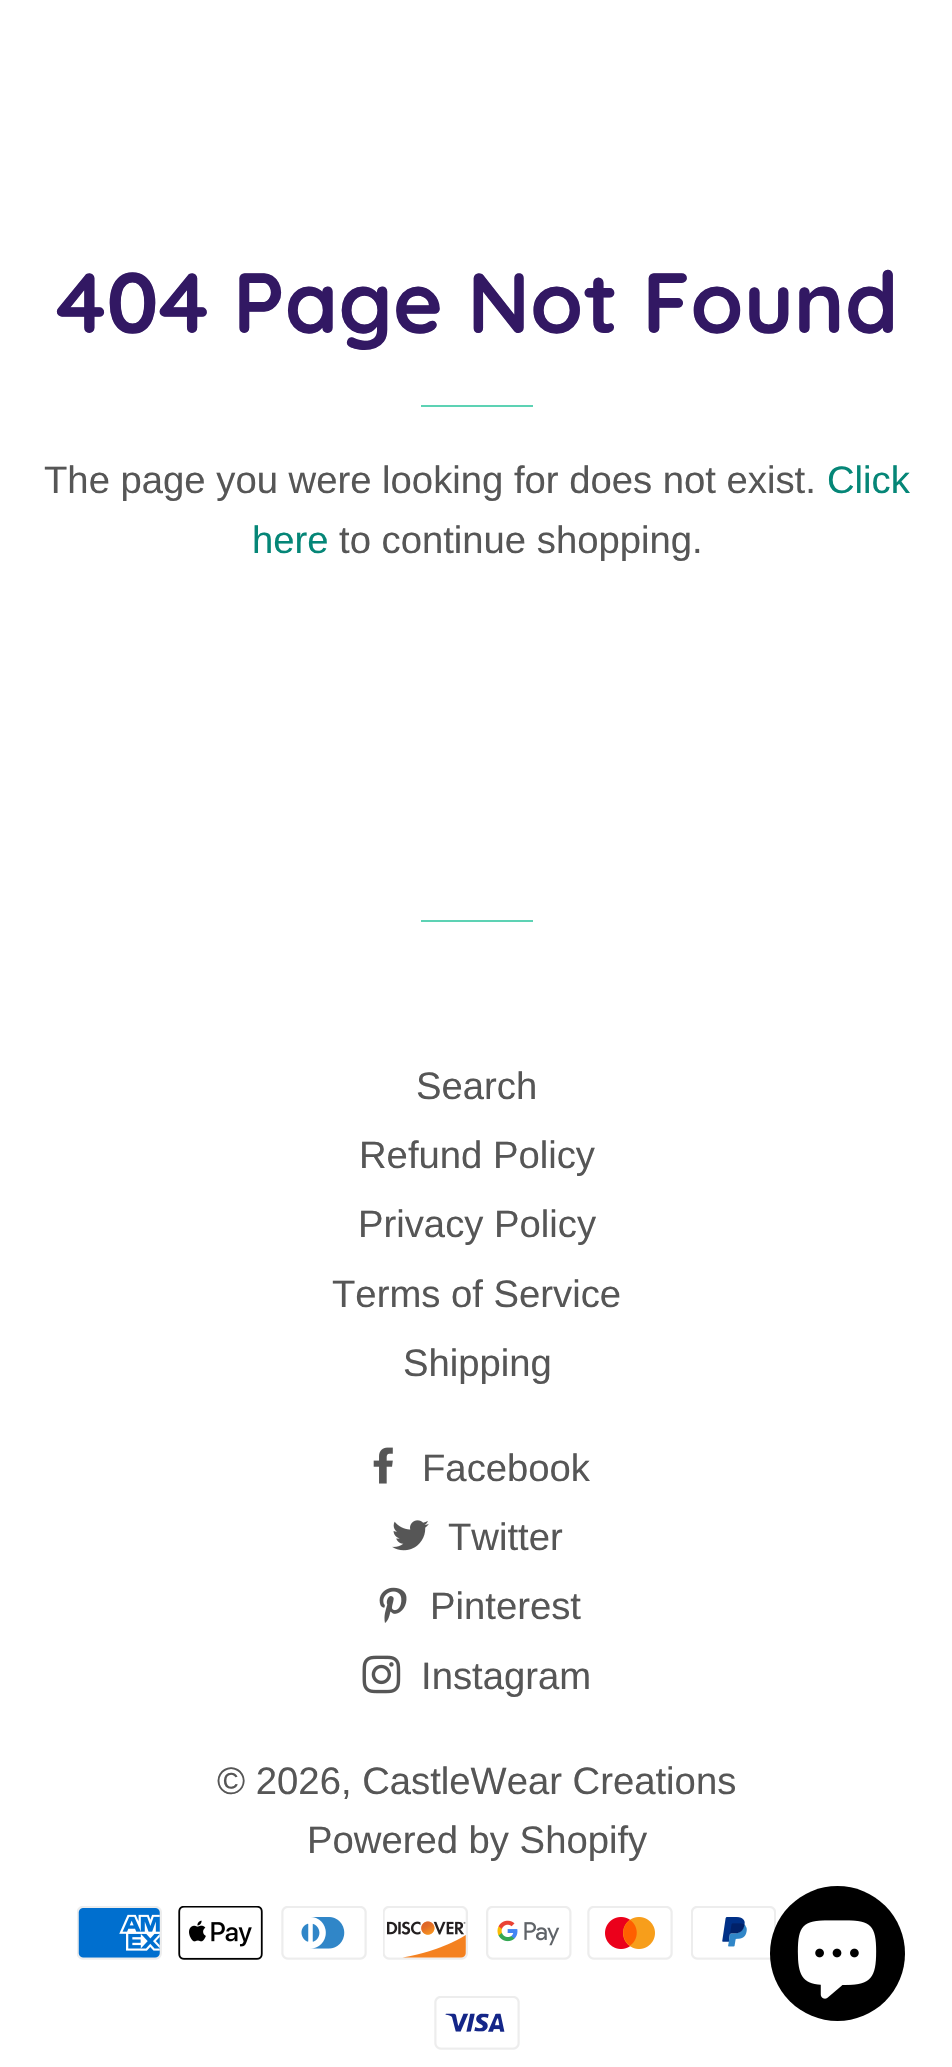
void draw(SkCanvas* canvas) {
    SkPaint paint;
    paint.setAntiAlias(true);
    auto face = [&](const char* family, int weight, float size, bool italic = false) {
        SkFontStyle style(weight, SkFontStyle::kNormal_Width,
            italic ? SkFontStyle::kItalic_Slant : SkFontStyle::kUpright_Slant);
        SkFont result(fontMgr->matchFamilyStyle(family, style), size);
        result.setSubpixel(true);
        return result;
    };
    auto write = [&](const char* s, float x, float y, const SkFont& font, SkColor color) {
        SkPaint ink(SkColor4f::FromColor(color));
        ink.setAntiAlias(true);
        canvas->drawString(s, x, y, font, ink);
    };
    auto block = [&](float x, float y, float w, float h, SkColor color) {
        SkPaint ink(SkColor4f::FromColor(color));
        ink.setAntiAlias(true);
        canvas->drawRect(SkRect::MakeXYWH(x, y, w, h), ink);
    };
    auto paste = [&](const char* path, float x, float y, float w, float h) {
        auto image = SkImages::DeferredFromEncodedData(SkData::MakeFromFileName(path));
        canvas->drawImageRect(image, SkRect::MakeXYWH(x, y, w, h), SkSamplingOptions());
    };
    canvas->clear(SK_ColorWHITE);
    auto kFont1 = face("Quicksand", 700, 85.5f);
    write("404 Page Not Found", 56, 333, kFont1, SkColorSetRGB(50, 24, 99));
    block(421, 405, 112, 2, SkColorSetRGB(93, 210, 180));
    auto kFont2 = face("Liberation Sans", 400, 38.25f);
    write("The page you were looking for does not exist.", 44, 493, kFont2, SkColorSetRGB(86, 86, 86));
    write("Click", 827, 493, kFont2, SkColorSetRGB(5, 134, 119));
    write("here", 252, 553, kFont2, SkColorSetRGB(5, 134, 119));
    write("to continue shopping.", 339, 553, kFont2, SkColorSetRGB(86, 86, 86));
    block(421, 920, 112, 2, SkColorSetRGB(93, 210, 180));
    write("Search", 416, 1099, kFont2, SkColorSetRGB(86, 86, 86));
    write("Refund Policy", 359, 1168, kFont2, SkColorSetRGB(86, 86, 86));
    write("Privacy Policy", 358, 1237, kFont2, SkColorSetRGB(86, 86, 86));
    write("Terms of Service", 332, 1307, kFont2, SkColorSetRGB(86, 86, 86));
    write("Shipping", 403, 1376, kFont2, SkColorSetRGB(86, 86, 86));
    paste("pic1.png", 373, 1447, 20, 37);
    write("Facebook", 422, 1481, kFont2, SkColorSetRGB(86, 86, 86));
    paste("pic2.png", 392, 1520, 37, 31);
    write("Twitter", 448, 1550, kFont2, SkColorSetRGB(86, 86, 86));
    paste("pic3.png", 379, 1587, 28, 36);
    write("Pinterest", 430, 1619, kFont2, SkColorSetRGB(86, 86, 86));
    paste("pic4.png", 362, 1655, 39, 39);
    write("Instagram", 421, 1689, kFont2, SkColorSetRGB(86, 86, 86));
    write("© 2026, CastleWear Creations", 217, 1794, kFont2, SkColorSetRGB(86, 86, 86));
    write("Powered by Shopify", 307, 1853, kFont2, SkColorSetRGB(86, 86, 86));
    paste("pic5.png", 77, 1906, 85, 54);
    paste("pic6.png", 178, 1906, 85, 54);
    paste("pic7.png", 281, 1906, 86, 54);
    paste("pic8.png", 383, 1906, 85, 54);
    paste("pic9.png", 486, 1906, 86, 54);
    paste("pic10.png", 587, 1906, 86, 54);
    paste("pic11.png", 691, 1906, 85, 54);
    paste("pic12.png", 434, 1996, 86, 54);
    paint.setColor(SK_ColorBLACK);
    canvas->drawCircle(837.5f, 1953.5f, 67.5f, paint);
    paste("pic13.png", 797, 1920, 80, 79);
}
